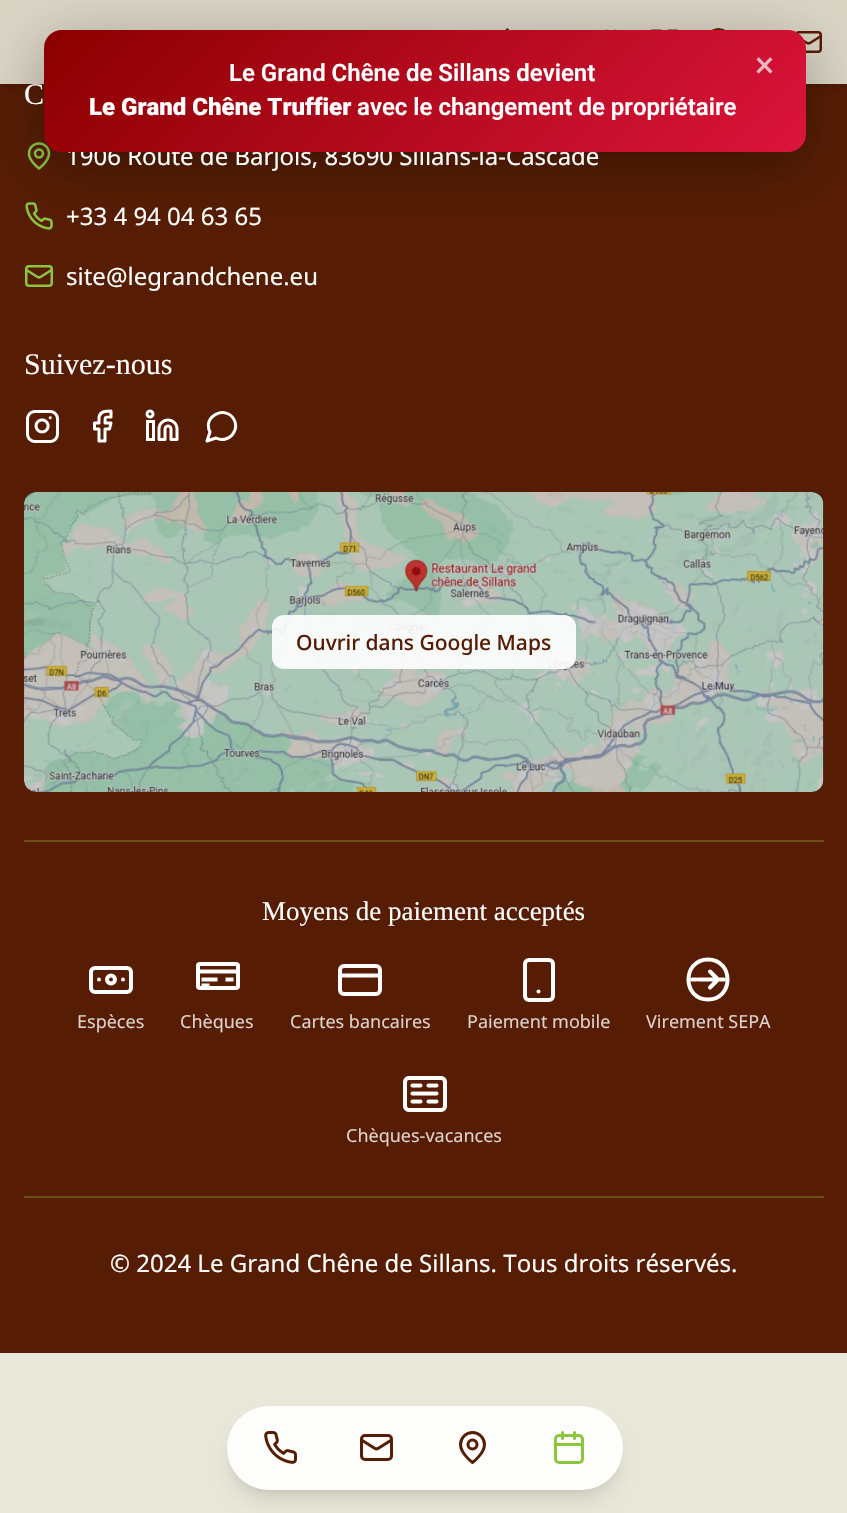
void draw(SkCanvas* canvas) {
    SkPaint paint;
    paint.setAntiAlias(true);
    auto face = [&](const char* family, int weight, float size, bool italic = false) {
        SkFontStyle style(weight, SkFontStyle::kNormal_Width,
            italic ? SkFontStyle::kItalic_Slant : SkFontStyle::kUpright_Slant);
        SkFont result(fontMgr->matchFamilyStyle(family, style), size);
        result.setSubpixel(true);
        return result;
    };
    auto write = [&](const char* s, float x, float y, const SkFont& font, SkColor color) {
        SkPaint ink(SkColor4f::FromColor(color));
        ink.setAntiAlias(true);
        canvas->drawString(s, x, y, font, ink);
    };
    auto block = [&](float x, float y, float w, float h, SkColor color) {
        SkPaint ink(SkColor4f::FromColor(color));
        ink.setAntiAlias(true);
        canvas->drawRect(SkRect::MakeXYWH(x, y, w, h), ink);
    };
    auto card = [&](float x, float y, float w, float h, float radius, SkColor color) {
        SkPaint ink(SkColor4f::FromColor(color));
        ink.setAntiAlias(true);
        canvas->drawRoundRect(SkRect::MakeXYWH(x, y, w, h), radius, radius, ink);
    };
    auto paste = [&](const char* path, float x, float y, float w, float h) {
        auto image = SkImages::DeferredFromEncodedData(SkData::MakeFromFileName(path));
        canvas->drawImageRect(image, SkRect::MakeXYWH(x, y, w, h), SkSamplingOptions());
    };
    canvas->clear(SkColorSetRGB(233, 232, 218));
    block(0, 84, 847, 1269, SkColorSetRGB(87, 29, 4));
    paint.setColor(SkColorSetARGB(26, 0, 0, 0));
    paint.setMaskFilter(SkMaskFilter::MakeBlur(kNormal_SkBlurStyle, 3));
    canvas->drawRect(SkRect::MakeXYWH(3, 6, 842, 78), paint);
    paint.setMaskFilter(nullptr);
    paint.setMaskFilter(SkMaskFilter::MakeBlur(kNormal_SkBlurStyle, 4.5f));
    canvas->drawRect(SkRect::MakeXYWH(2, 8, 844, 81), paint);
    paint.setMaskFilter(nullptr);
    block(0, 0, 847, 84, SkColorSetRGB(218, 212, 197));
    paste("pic1.png", 491, 28, 18, 2);
    paste("pic2.png", 605, 29, 12, 1);
    paste("pic3.png", 651, 29, 27, 1);
    paint.setStyle(SkPaint::kStroke_Style);
    paint.setStrokeWidth(2.5f);
    paint.setColor(SkColorSetRGB(87, 29, 4));
    canvas->drawCircle(718.5f, 42, 12.5f, paint);
    paint.setStrokeCap(SkPaint::kRound_Cap);
    paint.setStrokeJoin(SkPaint::kRound_Join);
    canvas->drawPath(SkPathBuilder().moveTo(718.5f, 29.5f).cubicTo(712, 36.5f, 712, 47.5f, 718.5f, 54.5f).cubicTo(725, 47.5f, 725, 36.5f, 718.5f, 29.5f).detach(), paint);
    paint.setStrokeCap(SkPaint::kButt_Cap);
    paint.setStrokeJoin(SkPaint::kMiter_Join);
    canvas->drawRoundRect(SkRect::MakeXYWH(796.25f, 32.25f, 24.5f, 19.5f), 2.75f, 2.75f, paint);
    paint.setStrokeCap(SkPaint::kRound_Cap);
    paint.setStrokeJoin(SkPaint::kRound_Join);
    canvas->drawPath(SkPathBuilder().moveTo(821, 36).lineTo(810, 43).cubicTo(809, 43.5f, 808, 43.5f, 807, 43).lineTo(796, 36).detach(), paint);
    paste("pic4.png", 27, 142, 24, 28);
    paste("pic5.png", 25, 202, 28, 28);
    paint.setStyle(SkPaint::kFill_Style);
    paint.setColor(SkColorSetARGB(77, 0, 0, 0));
    paint.setMaskFilter(SkMaskFilter::MakeBlur(kNormal_SkBlurStyle, 30));
    canvas->drawRoundRect(SkRect::MakeXYWH(44, 45, 762, 122), 18, 18, paint);
    paint.setMaskFilter(nullptr);
    auto kFont1 = face("Noto Sans", 400, 24);
    write("1906 Route de Barjols, 83690 Sillans-la-Cascade", 66, 165, kFont1, SK_ColorWHITE);
    {
        const SkColor colors[] = {SkColorSetRGB(139, 0, 0), SkColorSetRGB(220, 20, 60)};
        const float stops[] = {0, 1};
        const SkPoint ends[] = {{203, -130}, {645, 312}};
        paint.setShader(SkGradientShader::MakeLinear(ends, colors, stops, 2, SkTileMode::kClamp));
        paint.setAlpha(255);
    }
    canvas->drawRoundRect(SkRect::MakeXYWH(44, 30, 762, 122), 18, 18, paint);
    auto kFont2 = face("Roboto", 600, 24);
    write("Le Grand Chêne de Sillans devient", 229, 81, kFont2, SK_ColorWHITE);
    auto kFont3 = face("Roboto", 900, 24);
    write("Le Grand Chêne Truffier", 89, 115, kFont3, SK_ColorWHITE);
    write("avec le changement de propriétaire", 357, 115, kFont2, SK_ColorWHITE);
    auto kFont4 = face("Roboto", 400, 36);
    write("×", 755, 77, kFont4, SkColorSetRGB(241, 184, 194));
    auto kFont5 = face("Liberation Serif", 400, 30);
    write("C", 24, 104, kFont5, SK_ColorWHITE);
    write("+33 4 94 04 63 65", 66, 225, kFont1, SK_ColorWHITE);
    paint.setStyle(SkPaint::kStroke_Style);
    paint.setStrokeCap(SkPaint::kButt_Cap);
    paint.setStrokeJoin(SkPaint::kMiter_Join);
    paint.setShader(nullptr);
    paint.setColor(SkColorSetRGB(140, 198, 62));
    canvas->drawRoundRect(SkRect::MakeXYWH(26.25f, 266.25f, 25.5f, 19.5f), 2.75f, 2.75f, paint);
    paint.setStrokeCap(SkPaint::kRound_Cap);
    paint.setStrokeJoin(SkPaint::kRound_Join);
    canvas->drawPath(SkPathBuilder().moveTo(51.5f, 270).lineTo(40.5f, 277).cubicTo(39.5f, 277.5f, 38.5f, 277.5f, 37.5f, 277).lineTo(26.5f, 270).detach(), paint);
    write("site@legrandchene.eu", 66, 285, kFont1, SK_ColorWHITE);
    write("Suivez-nous", 24, 374, kFont5, SK_ColorWHITE);
    paste("pic6.png", 26, 410, 33, 33);
    paint.setStrokeWidth(3);
    paint.setColor(SK_ColorWHITE);
    canvas->drawPath(SkPathBuilder().moveTo(111, 411).cubicTo(106, 411, 100.5f, 411, 99, 417).lineTo(99, 423).lineTo(94.5f, 423).lineTo(94.5f, 429).lineTo(99, 429).lineTo(99, 441).lineTo(105, 441).lineTo(105, 429).lineTo(109.5f, 429).lineTo(111, 423).lineTo(105, 423).cubicTo(105, 416.5f, 104.5f, 417, 111, 417).close().detach(), paint);
    paste("pic7.png", 145, 409, 34, 32);
    canvas->drawPath(SkPathBuilder().moveTo(216, 438).cubicTo(222.5f, 441.5f, 231, 438.5f, 234, 432).cubicTo(236, 428.5f, 236, 424, 234.5f, 420.5f).cubicTo(227, 404, 201.5f, 416, 210, 432).lineTo(207, 441).close().detach(), paint);
    paste("pic8.png", 24, 492, 800, 300);
    card(24, 492, 800, 300, 12, SkColorSetARGB(51, 0, 0, 0));
    card(272, 615, 304, 54, 12, SkColorSetARGB(230, 255, 255, 255));
    auto kFont6 = face("Noto Sans", 500, 21);
    write("Ouvrir dans Google Maps", 296, 650, kFont6, SkColorSetRGB(87, 29, 4));
    block(24, 840, 800, 2, SkColorSetRGB(103, 80, 21));
    auto kFont7 = face("Liberation Serif", 400, 27);
    write("Moyens de paiement acceptés", 262, 920, kFont7, SK_ColorWHITE);
    paint.setStrokeWidth(4);
    paint.setStrokeCap(SkPaint::kButt_Cap);
    paint.setStrokeJoin(SkPaint::kMiter_Join);
    canvas->drawRoundRect(SkRect::MakeXYWH(91, 968, 40, 24), 4, 4, paint);
    canvas->drawCircle(111, 979.5f, 4, paint);
    paint.setStrokeCap(SkPaint::kRound_Cap);
    paint.setStrokeJoin(SkPaint::kRound_Join);
    canvas->drawPath(SkPathBuilder().moveTo(99, 979.5f).lineTo(99, 979.5f).moveTo(123, 979.5f).lineTo(123, 979.5f).detach(), paint);
    auto kFont8 = face("Noto Sans", 400, 18);
    write("Espèces", 77, 1028, kFont8, SkColorSetRGB(221, 210, 205));
    paint.setStrokeCap(SkPaint::kButt_Cap);
    paint.setStrokeJoin(SkPaint::kMiter_Join);
    canvas->drawRoundRect(SkRect::MakeXYWH(198, 964, 40, 24), 2, 2, paint);
    canvas->drawPath(SkPathBuilder().moveTo(197.5f, 971.5f).lineTo(237.5f, 971.5f).moveTo(201.5f, 979.5f).lineTo(217.5f, 979.5f).moveTo(225.5f, 979.5f).lineTo(233.5f, 979.5f).moveTo(201.5f, 985.5f).lineTo(209.5f, 985.5f).detach(), paint);
    write("Chèques", 180, 1028, kFont8, SkColorSetRGB(221, 210, 205));
    canvas->drawRoundRect(SkRect::MakeXYWH(340, 966, 40, 28), 4, 4, paint);
    paint.setStrokeCap(SkPaint::kRound_Cap);
    paint.setStrokeJoin(SkPaint::kRound_Join);
    canvas->drawPath(SkPathBuilder().moveTo(340, 975.5f).lineTo(380, 975.5f).detach(), paint);
    write("Cartes bancaires", 290, 1028, kFont8, SkColorSetRGB(221, 210, 205));
    paint.setStrokeCap(SkPaint::kButt_Cap);
    paint.setStrokeJoin(SkPaint::kMiter_Join);
    canvas->drawRoundRect(SkRect::MakeXYWH(525, 960, 28, 40), 4, 4, paint);
    paint.setStrokeCap(SkPaint::kRound_Cap);
    paint.setStrokeJoin(SkPaint::kRound_Join);
    canvas->drawPath(SkPathBuilder().moveTo(538.5f, 991.5f).lineTo(538.5f, 991.5f).detach(), paint);
    write("Paiement mobile", 467, 1028, kFont8, SkColorSetRGB(221, 210, 205));
    paint.setStrokeCap(SkPaint::kButt_Cap);
    paint.setStrokeJoin(SkPaint::kMiter_Join);
    canvas->drawPath(SkPathBuilder().moveTo(708, 999.5f).cubicTo(734, 999.5f, 734, 959.5f, 708, 959.5f).cubicTo(682, 959.5f, 682, 999.5f, 708, 999.5f).close().detach(), paint);
    paint.setStrokeCap(SkPaint::kRound_Cap);
    paint.setStrokeJoin(SkPaint::kRound_Join);
    canvas->drawPath(SkPathBuilder().moveTo(698, 979.5f).lineTo(718, 979.5f).moveTo(718, 979.5f).lineTo(710, 971.5f).moveTo(718, 979.5f).lineTo(710, 987.5f).detach(), paint);
    paint.setStrokeJoin(SkPaint::kMiter_Join);
    canvas->drawPath(SkPathBuilder().moveTo(692, 979.5f).lineTo(696, 979.5f).moveTo(720, 979.5f).lineTo(724, 979.5f).detach(), paint);
    write("Virement SEPA", 646, 1028, kFont8, SkColorSetRGB(221, 210, 205));
    paste("pic9.png", 403, 1076, 44, 36);
    write("Chèques-vacances", 346, 1142, kFont8, SkColorSetRGB(221, 210, 205));
    block(24, 1196, 800, 2, SkColorSetRGB(103, 80, 21));
    write("© 2024 Le Grand Chêne de Sillans. Tous droits réservés.", 110, 1272, kFont1, SK_ColorWHITE);
    canvas->save();
    canvas->clipPath(SkPathBuilder(SkPathFillType::kEvenOdd).moveTo(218, 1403).lineTo(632, 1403).lineTo(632, 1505).lineTo(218, 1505).close().moveTo(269, 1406).lineTo(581, 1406).cubicTo(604, 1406, 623, 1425, 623, 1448).cubicTo(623, 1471, 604, 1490, 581, 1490).lineTo(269, 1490).cubicTo(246, 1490, 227, 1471, 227, 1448).cubicTo(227, 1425, 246, 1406, 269, 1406).close().detach(), true);
    paint.setStyle(SkPaint::kFill_Style);
    paint.setColor(SkColorSetARGB(26, 0, 0, 0));
    paint.setMaskFilter(SkMaskFilter::MakeBlur(kNormal_SkBlurStyle, 4.5f));
    canvas->drawRoundRect(SkRect::MakeXYWH(233, 1418, 384, 72), 36, 36, paint);
    paint.setMaskFilter(nullptr);
    canvas->restore();
    canvas->save();
    canvas->clipPath(SkPathBuilder(SkPathFillType::kEvenOdd).moveTo(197, 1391).lineTo(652, 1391).lineTo(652, 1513).lineTo(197, 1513).close().moveTo(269, 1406).lineTo(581, 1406).cubicTo(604, 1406, 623, 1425, 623, 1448).cubicTo(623, 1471, 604, 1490, 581, 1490).lineTo(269, 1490).cubicTo(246, 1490, 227, 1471, 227, 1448).cubicTo(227, 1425, 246, 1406, 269, 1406).close().detach(), true);
    paint.setMaskFilter(SkMaskFilter::MakeBlur(kNormal_SkBlurStyle, 11));
    canvas->drawRoundRect(SkRect::MakeXYWH(231, 1425, 387, 75), 37.5f, 37.5f, paint);
    paint.setMaskFilter(nullptr);
    canvas->restore();
    card(227, 1406, 396, 84, 42, SkColorSetARGB(230, 255, 255, 255));
    paste("pic10.png", 264, 1431, 33, 33);
    paint.setStyle(SkPaint::kStroke_Style);
    paint.setStrokeWidth(3);
    paint.setStrokeCap(SkPaint::kButt_Cap);
    paint.setColor(SkColorSetRGB(87, 29, 4));
    canvas->drawRoundRect(SkRect::MakeXYWH(361.5f, 1435.5f, 30, 24), 3.5f, 3.5f, paint);
    paint.setStrokeCap(SkPaint::kRound_Cap);
    paint.setStrokeJoin(SkPaint::kRound_Join);
    canvas->drawPath(SkPathBuilder().moveTo(391.5f, 1440).lineTo(378, 1448.5f).cubicTo(377, 1449, 376, 1449, 375, 1448.5f).lineTo(361.5f, 1440).detach(), paint);
    canvas->drawPath(SkPathBuilder().moveTo(484.5f, 1444.5f).cubicTo(484.5f, 1453.5f, 472.5f, 1462.5f, 472.5f, 1462.5f).cubicTo(472.5f, 1462.5f, 460.5f, 1453.5f, 460.5f, 1444.5f).cubicTo(460.5f, 1438, 466, 1432.5f, 472.5f, 1432.5f).cubicTo(479, 1432.5f, 484.5f, 1438, 484.5f, 1444.5f).close().detach(), paint);
    paint.setStrokeCap(SkPaint::kButt_Cap);
    paint.setStrokeJoin(SkPaint::kMiter_Join);
    canvas->drawCircle(472.5f, 1444.5f, 4.5f, paint);
    paint.setStrokeCap(SkPaint::kRound_Cap);
    paint.setStrokeJoin(SkPaint::kRound_Join);
    paint.setColor(SkColorSetRGB(140, 198, 62));
    canvas->drawPath(SkPathBuilder().moveTo(562.5f, 1432.5f).lineTo(562.5f, 1438.5f).moveTo(574.5f, 1432.5f).lineTo(574.5f, 1438.5f).detach(), paint);
    paint.setStrokeCap(SkPaint::kButt_Cap);
    paint.setStrokeJoin(SkPaint::kMiter_Join);
    canvas->drawRoundRect(SkRect::MakeXYWH(555.5f, 1435.5f, 27, 27), 3.5f, 3.5f, paint);
    paint.setStrokeCap(SkPaint::kRound_Cap);
    paint.setStrokeJoin(SkPaint::kRound_Join);
    canvas->drawPath(SkPathBuilder().moveTo(555, 1444.5f).lineTo(582, 1444.5f).detach(), paint);
}
